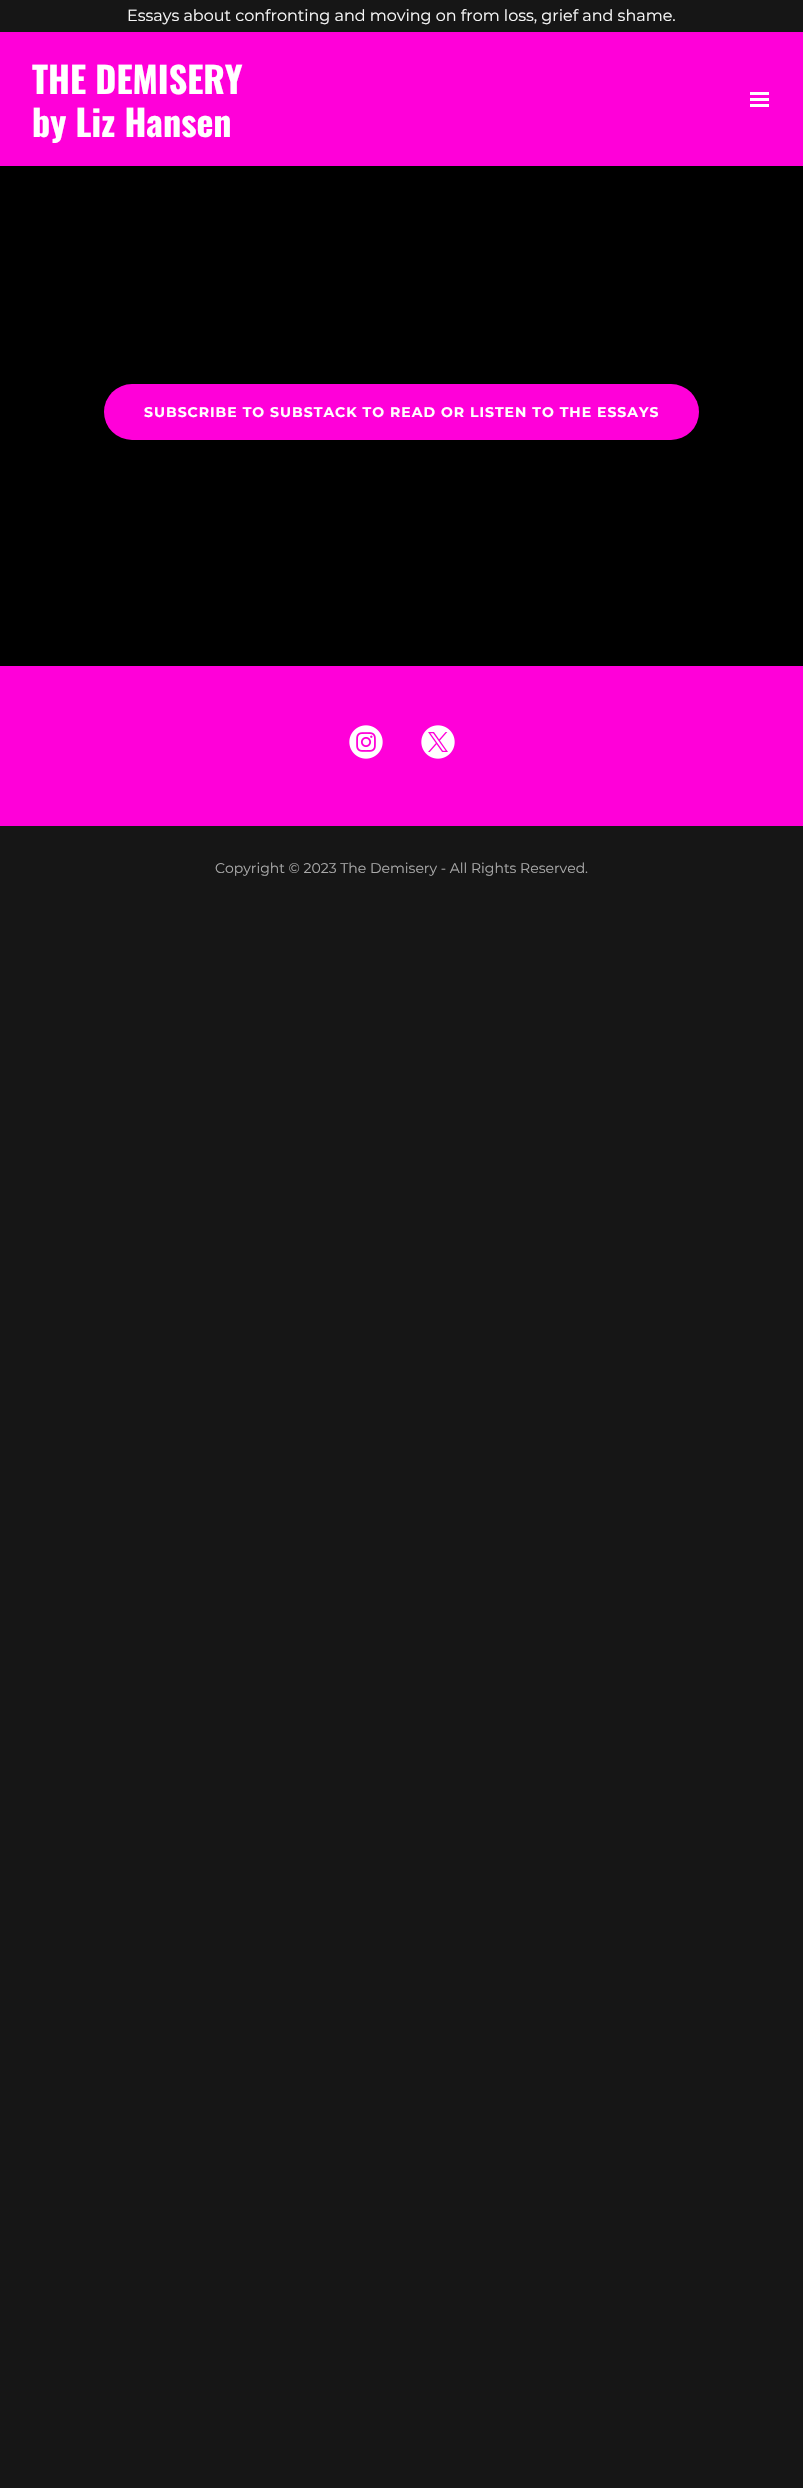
void draw(SkCanvas* canvas) {
    SkPaint paint;
    paint.setAntiAlias(true);
    auto face = [&](const char* family, int weight, float size, bool italic = false) {
        SkFontStyle style(weight, SkFontStyle::kNormal_Width,
            italic ? SkFontStyle::kItalic_Slant : SkFontStyle::kUpright_Slant);
        SkFont result(fontMgr->matchFamilyStyle(family, style), size);
        result.setSubpixel(true);
        return result;
    };
    auto write = [&](const char* s, float x, float y, const SkFont& font, SkColor color) {
        SkPaint ink(SkColor4f::FromColor(color));
        ink.setAntiAlias(true);
        canvas->drawString(s, x, y, font, ink);
    };
    auto writeSpaced = [&](const char* s, float x, float y, const SkFont& font, const SkPaint& ink, float letter, float word) {
        std::vector<SkGlyphID> glyphs(font.countText(s, strlen(s), SkTextEncoding::kUTF8));
        std::vector<float> xs(glyphs.size());
        font.textToGlyphs(s, strlen(s), SkTextEncoding::kUTF8, glyphs);
        font.getXPos(glyphs, xs, x);
        float extra = 0;
        for (size_t i = 0; i < glyphs.size(); i++) {
            xs[i] += extra;
            extra += letter + word * (glyphs[i] == font.unicharToGlyph(' '));
        }
        canvas->drawTextBlob(SkTextBlob::MakeFromPosHGlyphs(glyphs, xs, y, font), 0, 0, ink);
    };
    auto block = [&](float x, float y, float w, float h, SkColor color) {
        SkPaint ink(SkColor4f::FromColor(color));
        ink.setAntiAlias(true);
        canvas->drawRect(SkRect::MakeXYWH(x, y, w, h), ink);
    };
    auto card = [&](float x, float y, float w, float h, float radius, SkColor color) {
        SkPaint ink(SkColor4f::FromColor(color));
        ink.setAntiAlias(true);
        canvas->drawRoundRect(SkRect::MakeXYWH(x, y, w, h), radius, radius, ink);
    };
    auto paste = [&](const char* path, float x, float y, float w, float h) {
        auto image = SkImages::DeferredFromEncodedData(SkData::MakeFromFileName(path));
        canvas->drawImageRect(image, SkRect::MakeXYWH(x, y, w, h), SkSamplingOptions());
    };
    canvas->clear(SkColorSetRGB(22, 22, 22));
    block(0, 32, 803, 134, SkColorSetRGB(255, 0, 217));
    auto kFont1 = face("Montserrat", 400, 16);
    write("Essays about confronting and moving on from loss, grief and shame.", 127, 21, kFont1, SkColorSetRGB(247, 247, 247));
    auto kFont2 = face("Oswald", 700, 36);
    write("THE DEMISERY", 32, 94, kFont2, SK_ColorWHITE);
    write("by Liz Hansen", 32, 137, kFont2, SK_ColorWHITE);
    block(750, 92, 19, 3, SK_ColorWHITE);
    block(750, 98, 19, 3, SK_ColorWHITE);
    block(750, 104, 19, 3, SK_ColorWHITE);
    block(0, 166, 803, 500, SK_ColorBLACK);
    card(104, 384, 595, 56, 28, SkColorSetRGB(255, 0, 217));
    auto kFont3 = face("Montserrat", 700, 14);
    paint.setColor(SK_ColorWHITE);
    writeSpaced("SUBSCRIBE TO SUBSTACK TO READ OR LISTEN TO THE ESSAYS", 144, 417, kFont3, paint, 1, 0);
    block(0, 666, 803, 160, SkColorSetRGB(255, 0, 217));
    paste("pic1.png", 349, 725, 34, 34);
    paste("pic2.png", 421, 725, 34, 34);
    auto kFont4 = face("Montserrat", 400, 14);
    write("Copyright © 2023 The Demisery - All Rights Reserved.", 215, 873, kFont4, SkColorSetRGB(169, 169, 169));
}
